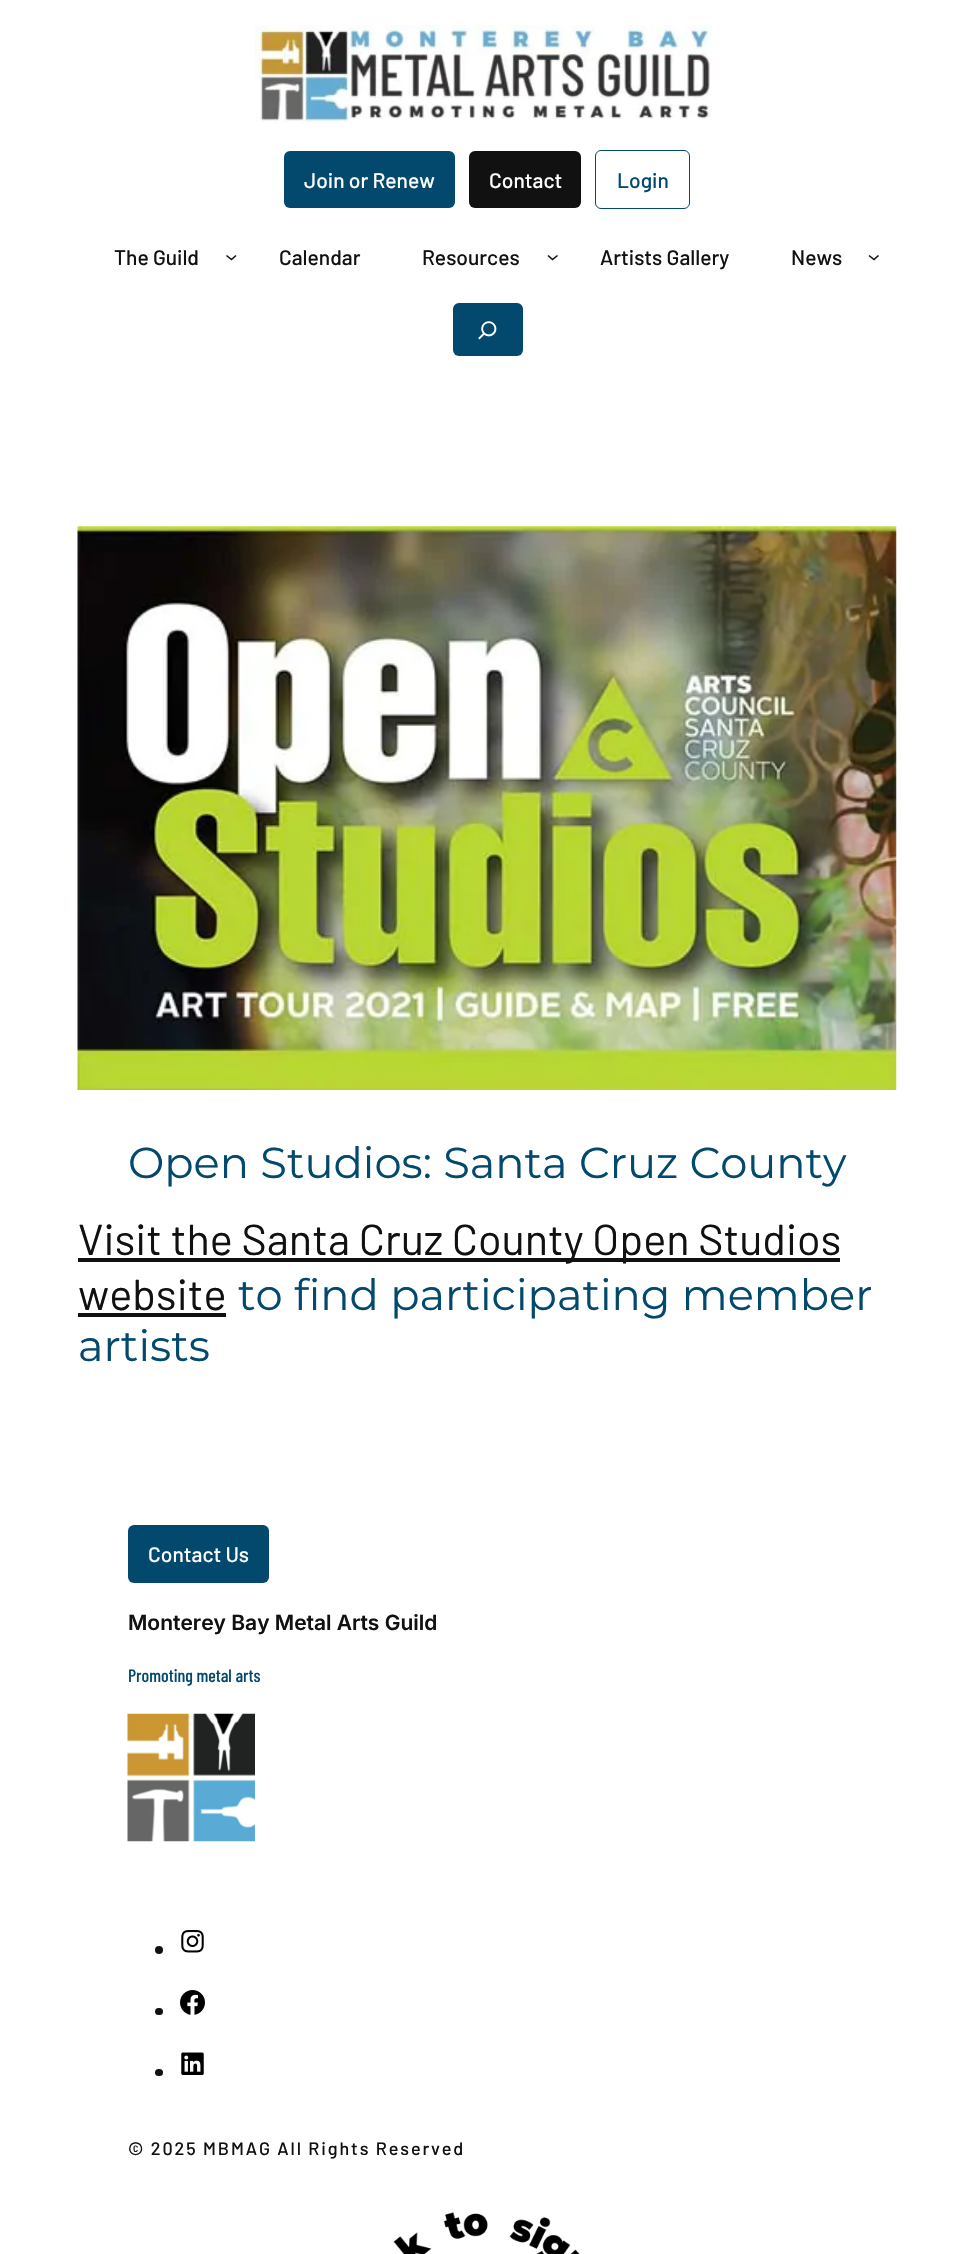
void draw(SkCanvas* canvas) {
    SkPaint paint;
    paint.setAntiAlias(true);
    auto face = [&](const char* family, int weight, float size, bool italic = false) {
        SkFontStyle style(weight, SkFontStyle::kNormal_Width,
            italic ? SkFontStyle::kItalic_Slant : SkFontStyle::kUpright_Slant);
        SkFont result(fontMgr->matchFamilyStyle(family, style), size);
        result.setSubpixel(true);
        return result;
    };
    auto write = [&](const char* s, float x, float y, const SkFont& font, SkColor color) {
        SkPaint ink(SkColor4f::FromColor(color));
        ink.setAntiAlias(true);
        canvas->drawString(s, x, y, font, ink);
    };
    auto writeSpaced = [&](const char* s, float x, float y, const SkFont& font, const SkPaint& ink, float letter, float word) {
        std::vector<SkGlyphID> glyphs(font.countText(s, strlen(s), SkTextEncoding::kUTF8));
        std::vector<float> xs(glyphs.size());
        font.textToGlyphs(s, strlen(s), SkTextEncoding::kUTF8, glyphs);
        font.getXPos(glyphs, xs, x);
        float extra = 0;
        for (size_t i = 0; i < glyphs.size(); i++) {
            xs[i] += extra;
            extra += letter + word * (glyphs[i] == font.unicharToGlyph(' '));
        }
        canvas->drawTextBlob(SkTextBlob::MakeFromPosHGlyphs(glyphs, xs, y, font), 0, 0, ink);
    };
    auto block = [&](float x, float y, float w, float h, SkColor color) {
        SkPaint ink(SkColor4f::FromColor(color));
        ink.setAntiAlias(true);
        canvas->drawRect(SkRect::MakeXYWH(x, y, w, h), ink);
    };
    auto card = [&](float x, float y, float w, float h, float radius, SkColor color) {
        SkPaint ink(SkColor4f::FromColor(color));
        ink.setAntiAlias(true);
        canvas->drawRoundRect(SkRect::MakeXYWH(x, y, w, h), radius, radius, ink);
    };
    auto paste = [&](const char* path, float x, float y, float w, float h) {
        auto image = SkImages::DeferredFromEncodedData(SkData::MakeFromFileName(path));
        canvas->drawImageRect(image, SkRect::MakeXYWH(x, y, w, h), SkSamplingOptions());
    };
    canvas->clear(SK_ColorWHITE);
    paste("pic1.png", 255, 25, 458, 98);
    card(284, 151, 171, 57, 6, SkColorSetRGB(2, 73, 109));
    auto kFont1 = face("Barlow", 500, 21);
    write("Join or Renew", 304, 188, kFont1, SK_ColorWHITE);
    card(469, 151, 112, 57, 6, SkColorSetRGB(17, 17, 17));
    write("Contact", 489, 188, kFont1, SK_ColorWHITE);
    paint.setStyle(SkPaint::kStroke_Style);
    paint.setStrokeWidth(1);
    paint.setColor(SkColorSetRGB(2, 73, 109));
    canvas->drawRoundRect(SkRect::MakeXYWH(595.5f, 150.5f, 94, 58), 5.5f, 5.5f, paint);
    write("Login", 617, 188, kFont1, SkColorSetRGB(2, 73, 109));
    write("The Guild", 114, 265, kFont1, SkColorSetRGB(17, 17, 17));
    paint.setStrokeWidth(1.6f);
    paint.setColor(SkColorSetRGB(17, 17, 17));
    canvas->drawPath(SkPathBuilder().moveTo(226.5f, 255.5f).lineTo(231.5f, 259.5f).lineTo(236, 255.5f).detach(), paint);
    write("Calendar", 279, 265, kFont1, SkColorSetRGB(17, 17, 17));
    write("Resources", 422, 265, kFont1, SkColorSetRGB(17, 17, 17));
    canvas->drawPath(SkPathBuilder().moveTo(548, 255.5f).lineTo(552.5f, 259.5f).lineTo(557.5f, 255.5f).detach(), paint);
    write("Artists Gallery", 600, 265, kFont1, SkColorSetRGB(17, 17, 17));
    write("News", 791, 265, kFont1, SkColorSetRGB(17, 17, 17));
    canvas->drawPath(SkPathBuilder().moveTo(869, 255.5f).lineTo(874, 259.5f).lineTo(878.5f, 255.5f).detach(), paint);
    card(453, 303, 70, 53, 6, SkColorSetRGB(2, 73, 109));
    paste("pic2.png", 478, 321, 19, 19);
    paste("pic3.png", 77, 526, 820, 564);
    auto kFont2 = face("Montserrat", 400, 43.25f);
    write("Open Studios: Santa Cruz County", 128, 1178, kFont2, SkColorSetRGB(2, 73, 109));
    block(78, 1258, 762, 4, SkColorSetRGB(17, 17, 17));
    auto kFont3 = face("Barlow", 400, 43.25f);
    write("Visit the Santa Cruz County Open Studios", 78, 1255, kFont3, SkColorSetRGB(17, 17, 17));
    write("website", 78, 1310, kFont3, SkColorSetRGB(17, 17, 17));
    block(78, 1313, 148, 4, SkColorSetRGB(17, 17, 17));
    write("to find participating member", 238, 1310, kFont2, SkColorSetRGB(2, 73, 109));
    write("artists", 78, 1361, kFont2, SkColorSetRGB(2, 73, 109));
    card(128, 1525, 141, 58, 6, SkColorSetRGB(2, 73, 109));
    write("Contact Us", 148, 1562, kFont1, SK_ColorWHITE);
    auto kFont4 = face("Inter", 600, 21);
    write("Monterey Bay Metal Arts Guild", 128, 1630, kFont4, SkColorSetRGB(17, 17, 17));
    auto kFont5 = face("Barlow Condensed", 500, 18);
    write("Promoting metal arts", 128, 1682, kFont5, SkColorSetRGB(2, 73, 109));
    paste("pic4.png", 127, 1713, 128, 129);
    paint.setStyle(SkPaint::kFill_Style);
    canvas->drawCircle(159, 1950, 4, paint);
    paste("pic5.png", 181, 1930, 23, 23);
    card(155, 2008, 8, 7, 3.5f, SkColorSetRGB(17, 17, 17));
    paste("pic6.png", 180, 1990, 25, 25);
    card(155, 2069, 8, 7, 3.5f, SkColorSetRGB(17, 17, 17));
    paste("pic7.png", 181, 2052, 23, 23);
    auto kFont6 = face("Barlow", 500, 18);
    writeSpaced("© 2025 MBMAG All Rights Reserved", 128, 2155, kFont6, paint, 1.9f, 0);
    paste("pic8.png", 393, 2212, 187, 42);
}
